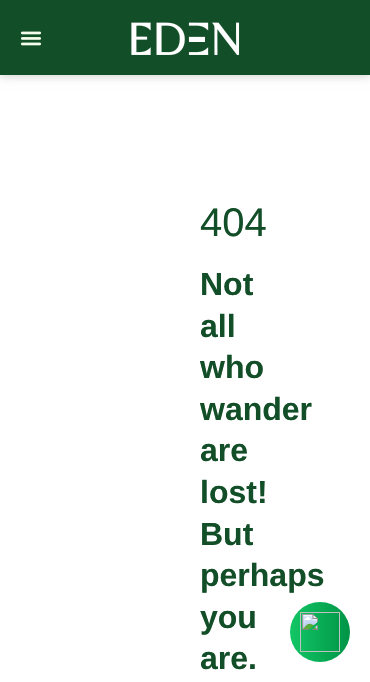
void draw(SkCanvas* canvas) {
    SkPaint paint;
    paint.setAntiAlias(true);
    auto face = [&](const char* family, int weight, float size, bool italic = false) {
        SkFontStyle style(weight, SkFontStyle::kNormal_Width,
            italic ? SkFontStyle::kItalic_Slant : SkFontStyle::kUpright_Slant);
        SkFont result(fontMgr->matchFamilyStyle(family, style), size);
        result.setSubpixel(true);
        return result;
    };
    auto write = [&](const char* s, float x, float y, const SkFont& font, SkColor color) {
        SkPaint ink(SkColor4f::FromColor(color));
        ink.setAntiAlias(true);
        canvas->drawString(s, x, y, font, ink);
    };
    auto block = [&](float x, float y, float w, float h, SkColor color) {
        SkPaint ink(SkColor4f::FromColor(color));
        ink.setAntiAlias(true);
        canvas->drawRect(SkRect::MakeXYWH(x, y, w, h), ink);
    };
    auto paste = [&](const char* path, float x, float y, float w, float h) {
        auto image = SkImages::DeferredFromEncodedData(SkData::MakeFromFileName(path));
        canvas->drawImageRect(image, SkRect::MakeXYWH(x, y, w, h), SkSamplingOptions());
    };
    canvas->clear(SK_ColorWHITE);
    paint.setColor(SkColorSetARGB(56, 0, 0, 0));
    paint.setMaskFilter(SkMaskFilter::MakeBlur(kNormal_SkBlurStyle, 5));
    canvas->drawRect(SkRect::MakeXYWH(0, 0, 370, 75), paint);
    paint.setMaskFilter(nullptr);
    block(0, 0, 370, 75, SkColorSetRGB(18, 78, 39));
    paste("pic1.png", 20, 31, 22, 15);
    paste("pic2.png", 131, 22, 109, 33);
    auto kFont1 = face("Liberation Sans", 400, 40);
    write("404", 200, 236, kFont1, SkColorSetRGB(18, 78, 39));
    auto kFont2 = face("Liberation Sans", 700, 32);
    write("Not", 200, 295, kFont2, SkColorSetRGB(18, 78, 39));
    write("all", 200, 337, kFont2, SkColorSetRGB(18, 78, 39));
    write("who", 200, 378, kFont2, SkColorSetRGB(18, 78, 39));
    write("wander", 200, 420, kFont2, SkColorSetRGB(18, 78, 39));
    write("are", 200, 461, kFont2, SkColorSetRGB(18, 78, 39));
    write("lost!", 200, 503, kFont2, SkColorSetRGB(18, 78, 39));
    write("But", 200, 545, kFont2, SkColorSetRGB(18, 78, 39));
    write("perhaps", 200, 586, kFont2, SkColorSetRGB(18, 78, 39));
    write("you", 200, 628, kFont2, SkColorSetRGB(18, 78, 39));
    write("are.", 200, 669, kFont2, SkColorSetRGB(18, 78, 39));
    paste("pic3.png", 290, 602, 60, 60);
}
